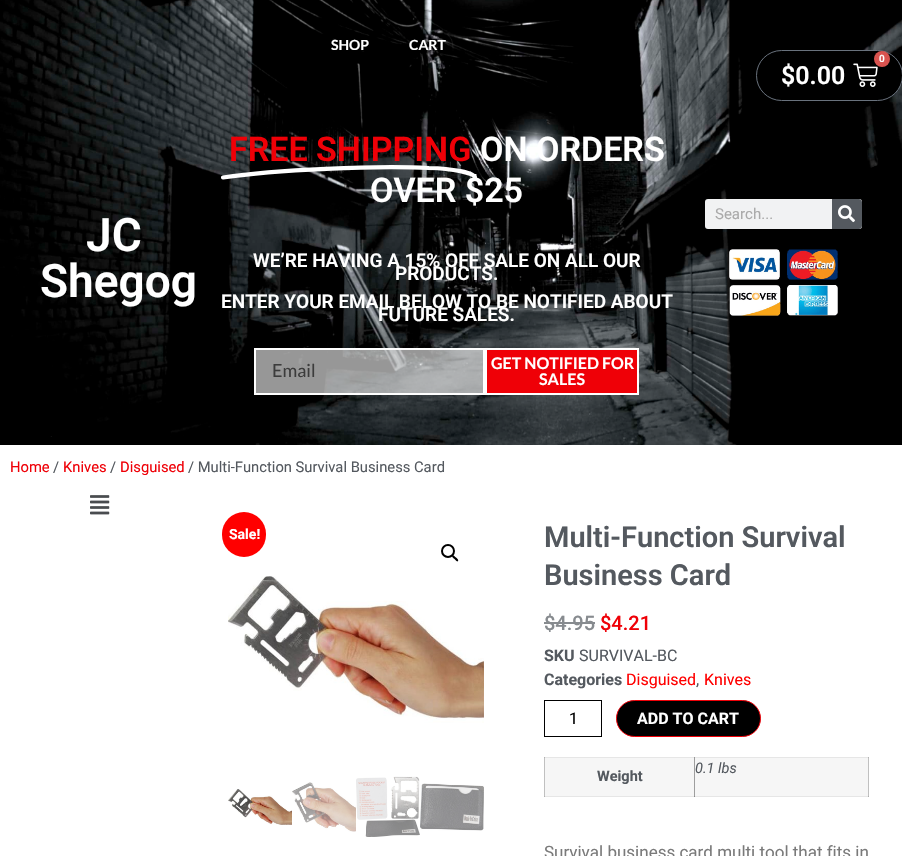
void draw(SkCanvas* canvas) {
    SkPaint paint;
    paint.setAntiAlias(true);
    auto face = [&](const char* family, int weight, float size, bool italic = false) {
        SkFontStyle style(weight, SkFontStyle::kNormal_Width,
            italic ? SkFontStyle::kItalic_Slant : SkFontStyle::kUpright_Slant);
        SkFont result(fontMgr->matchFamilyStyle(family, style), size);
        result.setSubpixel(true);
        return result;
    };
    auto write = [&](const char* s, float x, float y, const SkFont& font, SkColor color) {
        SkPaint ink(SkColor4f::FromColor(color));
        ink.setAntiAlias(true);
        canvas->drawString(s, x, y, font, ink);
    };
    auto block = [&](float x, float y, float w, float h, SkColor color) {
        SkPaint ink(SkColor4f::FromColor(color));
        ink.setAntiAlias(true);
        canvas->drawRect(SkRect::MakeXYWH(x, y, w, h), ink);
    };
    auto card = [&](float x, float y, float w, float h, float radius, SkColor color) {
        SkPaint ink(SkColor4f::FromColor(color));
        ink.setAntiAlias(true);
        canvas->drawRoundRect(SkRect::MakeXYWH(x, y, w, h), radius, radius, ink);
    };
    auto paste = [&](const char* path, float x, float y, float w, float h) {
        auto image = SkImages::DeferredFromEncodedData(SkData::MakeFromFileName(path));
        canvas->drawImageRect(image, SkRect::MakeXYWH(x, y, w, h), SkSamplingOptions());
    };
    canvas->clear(SK_ColorWHITE);
    block(544, 757, 1, 40, SkColorSetRGB(192, 192, 192));
    block(544, 796, 325, 1, SkColorSetRGB(230, 230, 230));
    block(544, 796, 1, 1, SkColorSetRGB(179, 179, 179));
    block(694, 796, 1, 1, SkColorSetRGB(139, 139, 139));
    block(868, 757, 1, 40, SkColorSetRGB(192, 192, 192));
    block(868, 796, 1, 1, SkColorSetRGB(173, 173, 173));
    paste("pic1.png", 0, 0, 902, 445);
    auto kFont1 = face("Lato", 700, 14);
    write("SHOP", 331, 50, kFont1, SK_ColorWHITE);
    write("CART", 409, 50, kFont1, SK_ColorWHITE);
    paint.setColor(SK_ColorBLACK);
    canvas->drawRoundRect(SkRect::MakeXYWH(756.5f, 50.5f, 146, 50), 25, 25, paint);
    paint.setStyle(SkPaint::kStroke_Style);
    paint.setStrokeWidth(1);
    paint.setColor(SkColorSetRGB(105, 114, 125));
    canvas->drawRoundRect(SkRect::MakeXYWH(756.5f, 50.5f, 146, 50), 25, 25, paint);
    paste("pic2.png", 853, 63, 25, 24);
    paint.setStyle(SkPaint::kFill_Style);
    paint.setColor(SkColorSetRGB(217, 83, 79));
    canvas->drawCircle(882, 59, 8, paint);
    auto kFont2 = face("Roboto", 600, 10);
    write("0", 879, 62, kFont2, SK_ColorWHITE);
    auto kFont3 = face("Roboto", 600, 25);
    write("$0.00", 781, 84, kFont3, SK_ColorWHITE);
    auto kFont4 = face("Roboto", 600, 34);
    write("FREE SHIPPING", 229, 161, kFont4, SkColorSetRGB(239, 0, 7));
    paint.setStyle(SkPaint::kStroke_Style);
    paint.setStrokeWidth(4.2f);
    paint.setStrokeCap(SkPaint::kRound_Cap);
    paint.setStrokeJoin(SkPaint::kRound_Join);
    paint.setColor(SK_ColorWHITE);
    canvas->drawPath(SkPathBuilder().moveTo(223, 177.5f).cubicTo(276, 169.5f, 376, 165.5f, 429, 168).cubicTo(451.5f, 168.5f, 475, 172.5f, 475, 178).detach(), paint);
    write("ON ORDERS", 480, 161, kFont4, SK_ColorWHITE);
    write("OVER $25", 370, 202, kFont4, SK_ColorWHITE);
    auto kFont5 = face("Roboto", 600, 19);
    write("WE’RE HAVING A 15% OFF SALE ON ALL OUR", 253, 267, kFont5, SK_ColorWHITE);
    write("PRODUCTS.", 395, 280, kFont5, SK_ColorWHITE);
    write("ENTER YOUR EMAIL BELOW TO BE NOTIFIED ABOUT", 221, 308, kFont5, SK_ColorWHITE);
    write("FUTURE SALES.", 378, 321, kFont5, SK_ColorWHITE);
    paint.setStyle(SkPaint::kFill_Style);
    paint.setColor(SkColorSetARGB(161, 239, 239, 239));
    canvas->drawRect(SkRect::MakeXYWH(255, 349, 229, 45), paint);
    paint.setStyle(SkPaint::kStroke_Style);
    paint.setStrokeWidth(2);
    paint.setStrokeCap(SkPaint::kButt_Cap);
    paint.setStrokeJoin(SkPaint::kMiter_Join);
    paint.setColor(SK_ColorWHITE);
    canvas->drawRect(SkRect::MakeXYWH(255, 349, 229, 45), paint);
    auto kFont6 = face("Lato", 400, 18);
    write("Email", 272, 377, kFont6, SkColorSetRGB(60, 60, 60));
    paint.setStyle(SkPaint::kFill_Style);
    paint.setColor(SkColorSetRGB(239, 0, 7));
    canvas->drawRect(SkRect::MakeXYWH(486, 349, 152, 45), paint);
    paint.setStyle(SkPaint::kStroke_Style);
    paint.setColor(SK_ColorWHITE);
    canvas->drawRect(SkRect::MakeXYWH(486, 349, 152, 45), paint);
    auto kFont7 = face("Lato", 700, 16);
    write("GET NOTIFIED FOR", 491, 369, kFont7, SK_ColorWHITE);
    write("SALES", 539, 385, kFont7, SK_ColorWHITE);
    card(705, 199, 157, 30, 3, SkColorSetRGB(241, 242, 243));
    auto kFont8 = face("Roboto", 400, 15);
    write("Search...", 715, 219, kFont8, SkColorSetRGB(170, 170, 170));
    paint.setStyle(SkPaint::kFill_Style);
    paint.setColor(SkColorSetRGB(84, 89, 95));
    canvas->drawPath(SkPathBuilder().moveTo(832, 199).lineTo(859, 199).cubicTo(860.5f, 199, 862, 200.5f, 862, 202).lineTo(862, 226).cubicTo(862, 227.5f, 860.5f, 229, 859, 229).lineTo(832, 229).close().detach(), paint);
    paste("pic3.png", 838, 205, 17, 18);
    paste("pic4.png", 729, 249, 109, 67);
    auto kFont9 = face("Roboto", 600, 46);
    write("JC", 86, 251, kFont9, SK_ColorWHITE);
    write("Shegog", 40, 297, kFont9, SK_ColorWHITE);
    auto kFont10 = face("Roboto", 400, 14.75f);
    write("Home", 10, 472, kFont10, SkColorSetRGB(239, 0, 7));
    write("/", 53, 472, kFont10, SkColorSetRGB(84, 89, 95));
    write("Knives", 63, 472, kFont10, SkColorSetRGB(239, 0, 7));
    write("/", 110, 472, kFont10, SkColorSetRGB(84, 89, 95));
    write("Disguised", 120, 472, kFont10, SkColorSetRGB(239, 0, 7));
    write("/ Multi-Function Survival Business Card", 188, 472, kFont10, SkColorSetRGB(84, 89, 95));
    paste("pic5.png", 90, 495, 20, 20);
    card(222, 512, 44, 45, 22, SkColorSetRGB(255, 0, 0));
    auto kFont11 = face("Roboto", 700, 14);
    write("Sale!", 229, 539, kFont11, SK_ColorWHITE);
    paint.setStyle(SkPaint::kStroke_Style);
    paint.setColor(SK_ColorBLACK);
    canvas->drawCircle(448, 551, 6, paint);
    paint.setStyle(SkPaint::kFill_Style);
    canvas->drawPath(SkPathBuilder().moveTo(452.5f, 555.5f).cubicTo(453.5f, 554.5f, 455, 557, 456, 557.5f).cubicTo(456.5f, 558, 459, 560, 458, 561).cubicTo(457, 562.5f, 455, 559.5f, 454.5f, 559).cubicTo(454, 558.5f, 451, 556.5f, 452.5f, 555.5f).close().detach(), paint);
    paste("pic6.png", 228, 576, 256, 147);
    paste("pic7.png", 228, 789, 64, 36);
    paste("pic8.png", 292, 782, 64, 50);
    paste("pic9.png", 356, 776, 64, 61);
    paste("pic10.png", 420, 783, 64, 48);
    auto kFont12 = face("Roboto", 600, 29);
    write("Multi-Function Survival", 544, 547, kFont12, SkColorSetRGB(84, 89, 95));
    write("Business Card", 544, 585, kFont12, SkColorSetRGB(84, 89, 95));
    auto kFont13 = face("Roboto", 500, 20);
    write("$4.95", 544, 630, kFont13, SkColorSetRGB(135, 139, 143));
    block(544, 622, 51, 2, SkColorSetRGB(135, 139, 143));
    write("$4.21", 600, 630, kFont13, SkColorSetRGB(239, 0, 7));
    auto kFont14 = face("Roboto", 700, 16);
    write("SKU", 544, 661, kFont14, SkColorSetRGB(84, 89, 95));
    auto kFont15 = face("Roboto", 400, 16);
    write("SURVIVAL-BC", 579, 661, kFont15, SkColorSetRGB(84, 89, 95));
    write("Categories", 544, 685, kFont14, SkColorSetRGB(84, 89, 95));
    write("Disguised", 626, 685, kFont15, SkColorSetRGB(255, 0, 0));
    write(",", 696, 685, kFont15, SkColorSetRGB(84, 89, 95));
    write("Knives", 704, 685, kFont15, SkColorSetRGB(255, 0, 0));
    paint.setStyle(SkPaint::kStroke_Style);
    paint.setStrokeWidth(1);
    canvas->drawRect(SkRect::MakeXYWH(544.5f, 700.5f, 57, 36), paint);
    write("1", 569, 724, kFont15, SK_ColorBLACK);
    paint.setStyle(SkPaint::kFill_Style);
    canvas->drawRoundRect(SkRect::MakeXYWH(616.5f, 700.5f, 144, 36), 18, 18, paint);
    paint.setStyle(SkPaint::kStroke_Style);
    paint.setColor(SkColorSetRGB(239, 0, 7));
    canvas->drawRoundRect(SkRect::MakeXYWH(616.5f, 700.5f, 144, 36), 18, 18, paint);
    write("ADD TO CART", 637, 724, kFont14, SK_ColorWHITE);
    block(544, 757, 325, 1, SkColorSetRGB(230, 230, 230));
    block(544, 757, 1, 1, SkColorSetRGB(179, 179, 179));
    block(694, 757, 1, 1, SkColorSetRGB(154, 154, 154));
    block(868, 757, 1, 1, SkColorSetRGB(179, 179, 179));
    block(695, 758, 173, 38, SkColorSetRGB(246, 246, 246));
    auto kFont16 = face("Roboto", 400, 14.5f, true);
    write("0.1 lbs", 695, 773, kFont16, SkColorSetRGB(84, 89, 95));
    block(545, 758, 149, 38, SkColorSetRGB(246, 246, 246));
    block(694, 758, 1, 38, SkColorSetRGB(158, 158, 158));
    auto kFont17 = face("Roboto", 700, 14.5f);
    write("Weight", 597, 781, kFont17, SkColorSetRGB(84, 89, 95));
    auto kFont18 = face("Roboto", 400, 17);
    write("Survival business card multi tool that fits in", 544, 858, kFont18, SkColorSetRGB(122, 122, 122));
}
